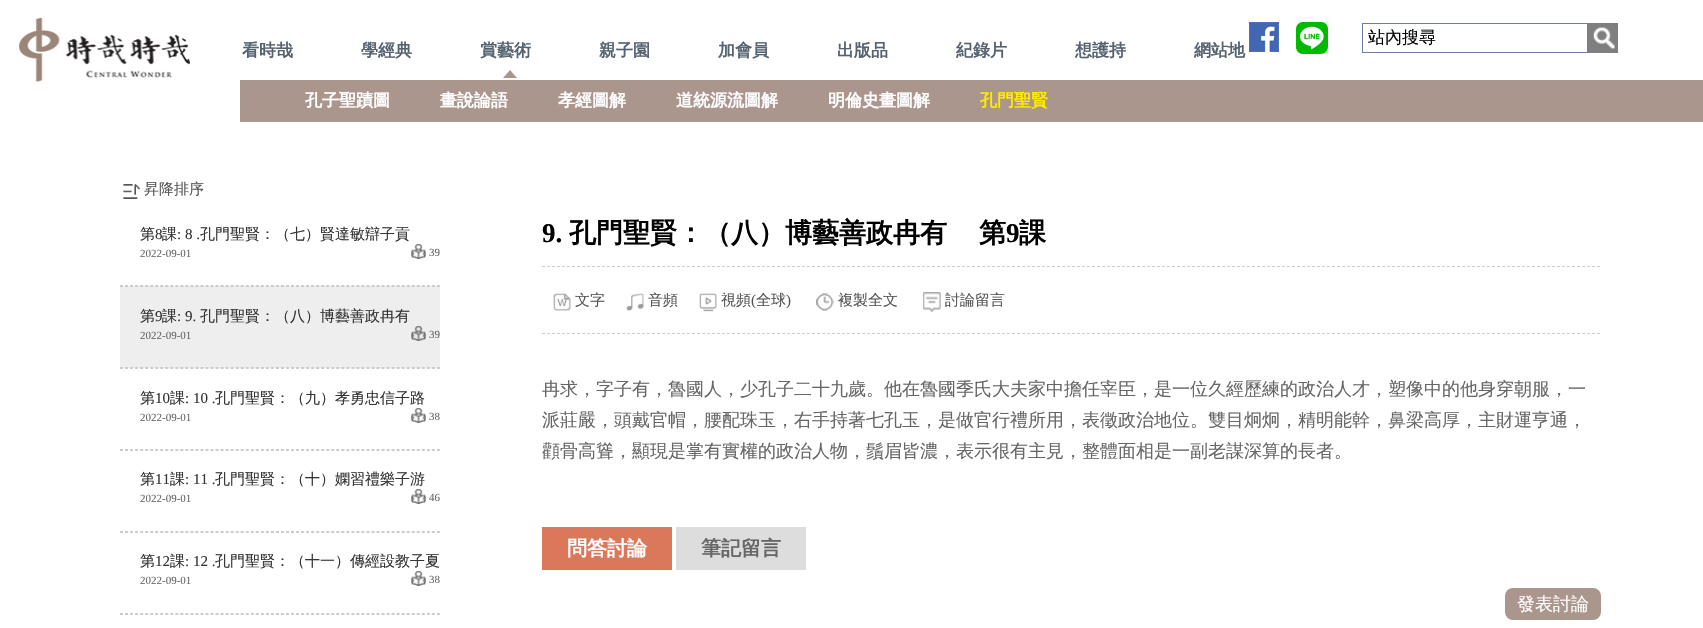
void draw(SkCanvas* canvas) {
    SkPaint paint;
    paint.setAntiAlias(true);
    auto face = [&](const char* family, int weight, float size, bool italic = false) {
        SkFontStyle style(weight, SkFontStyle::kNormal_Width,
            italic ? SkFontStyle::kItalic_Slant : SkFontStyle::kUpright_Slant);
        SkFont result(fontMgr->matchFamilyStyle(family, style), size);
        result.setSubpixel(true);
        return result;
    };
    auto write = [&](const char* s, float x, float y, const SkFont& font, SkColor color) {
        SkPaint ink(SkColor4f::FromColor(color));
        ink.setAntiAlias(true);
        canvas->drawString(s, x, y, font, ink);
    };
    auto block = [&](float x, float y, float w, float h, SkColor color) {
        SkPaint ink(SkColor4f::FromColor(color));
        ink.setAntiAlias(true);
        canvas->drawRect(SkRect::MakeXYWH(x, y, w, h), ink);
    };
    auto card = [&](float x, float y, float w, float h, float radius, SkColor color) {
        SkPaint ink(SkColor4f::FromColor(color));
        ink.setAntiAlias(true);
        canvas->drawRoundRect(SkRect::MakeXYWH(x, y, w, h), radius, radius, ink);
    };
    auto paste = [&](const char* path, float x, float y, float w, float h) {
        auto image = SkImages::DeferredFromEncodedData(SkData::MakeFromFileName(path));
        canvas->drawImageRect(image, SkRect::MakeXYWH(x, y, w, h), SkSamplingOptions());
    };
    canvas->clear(SK_ColorWHITE);
    paste("pic1.png", 19, 18, 171, 65);
    paste("pic2.png", 1249, 22, 30, 30);
    paste("pic3.png", 1296, 22, 32, 32);
    paint.setStyle(SkPaint::kStroke_Style);
    paint.setStrokeWidth(1);
    paint.setColor(SkColorSetRGB(106, 125, 163));
    canvas->drawRect(SkRect::MakeXYWH(1362.5f, 23.5f, 225, 29), paint);
    auto kFont1 = face("WenQuanYi Zen Hei", 500, 17);
    write("站內搜尋", 1368, 43, kFont1, SK_ColorBLACK);
    paste("pic4.png", 1588, 23, 30, 30);
    auto kFont2 = face("WenQuanYi Zen Hei", 700, 17);
    write("看時哉", 242, 56, kFont2, SkColorSetRGB(85, 98, 112));
    write("賞藝術", 480, 56, kFont2, SkColorSetRGB(85, 98, 112));
    paint.setStyle(SkPaint::kFill_Style);
    paint.setColor(SkColorSetRGB(170, 150, 140));
    canvas->drawPath(SkPathBuilder().moveTo(517, 78).lineTo(503, 78).lineTo(510, 70).close().detach(), paint);
    block(240, 80, 1463, 42, SkColorSetRGB(170, 150, 140));
    write("孔子聖蹟圖", 305, 106, kFont2, SK_ColorWHITE);
    write("畫說論語", 440, 106, kFont2, SK_ColorWHITE);
    write("孝經圖解", 558, 106, kFont2, SK_ColorWHITE);
    write("道統源流圖解", 676, 106, kFont2, SK_ColorWHITE);
    write("明倫史畫圖解", 828, 106, kFont2, SK_ColorWHITE);
    write("孔門聖賢", 980, 106, kFont2, SkColorSetRGB(255, 234, 0));
    write("學經典", 361, 56, kFont2, SkColorSetRGB(85, 98, 112));
    write("親子園", 599, 56, kFont2, SkColorSetRGB(85, 98, 112));
    write("加會員", 718, 56, kFont2, SkColorSetRGB(85, 98, 112));
    write("出版品", 837, 56, kFont2, SkColorSetRGB(85, 98, 112));
    write("紀錄片", 956, 56, kFont2, SkColorSetRGB(85, 98, 112));
    write("想護持", 1075, 56, kFont2, SkColorSetRGB(85, 98, 112));
    write("網站地", 1194, 56, kFont2, SkColorSetRGB(85, 98, 112));
    paste("pic5.png", 123, 184, 17, 15);
    auto kFont3 = face("WenQuanYi Zen Hei", 500, 15);
    write("昇降排序", 144, 194, kFont3, SkColorSetRGB(85, 85, 85));
    paint.setStyle(SkPaint::kStroke_Style);
    paint.setColor(SkColorSetRGB(204, 204, 204));
    paint.setPathEffect(SkDashPathEffect::Make({{3, 2.03f}}, 0));
    canvas->drawPath(SkPathBuilder().moveTo(120, 285.5f).lineTo(510, 285.5f).detach(), paint);
    paint.setPathEffect(nullptr);
    write("第", 140, 239, kFont3, SkColorSetRGB(51, 51, 51));
    auto kFont4 = face("Liberation Serif", 400, 15);
    write("8", 155, 239, kFont4, SkColorSetRGB(51, 51, 51));
    write("課", 162, 239, kFont3, SkColorSetRGB(51, 51, 51));
    write(": 8 .", 177, 239, kFont4, SkColorSetRGB(51, 51, 51));
    write("孔門聖賢：（七）賢達敏辯子貢", 200, 239, kFont3, SkColorSetRGB(51, 51, 51));
    auto kFont5 = face("Liberation Serif", 400, 11);
    write("2022-09-01", 140, 257, kFont5, SkColorSetRGB(102, 102, 102));
    paste("pic6.png", 411, 244, 15, 15);
    write("39", 429, 256, kFont5, SkColorSetRGB(102, 102, 102));
    block(120, 286, 320, 82, SkColorSetRGB(238, 238, 238));
    paint.setPathEffect(SkDashPathEffect::Make({{3, 2.03f}}, 0));
    canvas->drawPath(SkPathBuilder().moveTo(120, 286.5f).lineTo(510, 286.5f).detach(), paint);
    paint.setPathEffect(nullptr);
    paint.setPathEffect(SkDashPathEffect::Make({{3, 2.03f}}, 0));
    canvas->drawPath(SkPathBuilder().moveTo(120, 367.5f).lineTo(510, 367.5f).detach(), paint);
    paint.setPathEffect(nullptr);
    write("第", 140, 321, kFont3, SkColorSetRGB(51, 51, 51));
    write("9", 155, 321, kFont4, SkColorSetRGB(51, 51, 51));
    write("課", 162, 321, kFont3, SkColorSetRGB(51, 51, 51));
    write(": 9.", 177, 321, kFont4, SkColorSetRGB(51, 51, 51));
    write("孔門聖賢：（八）博藝善政冉有", 200, 321, kFont3, SkColorSetRGB(51, 51, 51));
    write("2022-09-01", 140, 339, kFont5, SkColorSetRGB(102, 102, 102));
    paste("pic7.png", 411, 326, 15, 15);
    write("39", 429, 338, kFont5, SkColorSetRGB(102, 102, 102));
    paint.setPathEffect(SkDashPathEffect::Make({{3, 2.03f}}, 0));
    canvas->drawPath(SkPathBuilder().moveTo(120, 368.5f).lineTo(510, 368.5f).detach(), paint);
    paint.setPathEffect(nullptr);
    paint.setPathEffect(SkDashPathEffect::Make({{3, 2.03f}}, 0));
    canvas->drawPath(SkPathBuilder().moveTo(120, 449.5f).lineTo(510, 449.5f).detach(), paint);
    paint.setPathEffect(nullptr);
    write("第", 140, 403, kFont3, SkColorSetRGB(51, 51, 51));
    write("10", 155, 403, kFont4, SkColorSetRGB(51, 51, 51));
    write("課", 170, 403, kFont3, SkColorSetRGB(51, 51, 51));
    write(": 10 .", 185, 403, kFont4, SkColorSetRGB(51, 51, 51));
    write("孔門聖賢：（九）孝勇忠信子路", 215, 403, kFont3, SkColorSetRGB(51, 51, 51));
    write("2022-09-01", 140, 421, kFont5, SkColorSetRGB(102, 102, 102));
    paste("pic6.png", 411, 408, 15, 15);
    write("38", 429, 420, kFont5, SkColorSetRGB(102, 102, 102));
    paint.setPathEffect(SkDashPathEffect::Make({{3, 2.03f}}, 0));
    canvas->drawPath(SkPathBuilder().moveTo(120, 450.5f).lineTo(510, 450.5f).detach(), paint);
    paint.setPathEffect(nullptr);
    paint.setPathEffect(SkDashPathEffect::Make({{3, 2.03f}}, 0));
    canvas->drawPath(SkPathBuilder().moveTo(120, 531.5f).lineTo(510, 531.5f).detach(), paint);
    paint.setPathEffect(nullptr);
    write("第", 140, 484, kFont3, SkColorSetRGB(51, 51, 51));
    write("11", 155, 484, kFont4, SkColorSetRGB(51, 51, 51));
    write("課", 170, 484, kFont3, SkColorSetRGB(51, 51, 51));
    write(": 11 .", 185, 484, kFont4, SkColorSetRGB(51, 51, 51));
    write("孔門聖賢：（十）嫻習禮樂子游", 215, 484, kFont3, SkColorSetRGB(51, 51, 51));
    write("2022-09-01", 140, 502, kFont5, SkColorSetRGB(102, 102, 102));
    paste("pic6.png", 411, 489, 15, 15);
    write("46", 429, 501, kFont5, SkColorSetRGB(102, 102, 102));
    paint.setPathEffect(SkDashPathEffect::Make({{3, 2.03f}}, 0));
    canvas->drawPath(SkPathBuilder().moveTo(120, 532.5f).lineTo(510, 532.5f).detach(), paint);
    paint.setPathEffect(nullptr);
    paint.setPathEffect(SkDashPathEffect::Make({{3, 2.03f}}, 0));
    canvas->drawPath(SkPathBuilder().moveTo(120, 613.5f).lineTo(510, 613.5f).detach(), paint);
    paint.setPathEffect(nullptr);
    write("第", 140, 566, kFont3, SkColorSetRGB(51, 51, 51));
    write("12", 155, 566, kFont4, SkColorSetRGB(51, 51, 51));
    write("課", 170, 566, kFont3, SkColorSetRGB(51, 51, 51));
    write(": 12 .", 185, 566, kFont4, SkColorSetRGB(51, 51, 51));
    write("孔門聖賢：（十一）傳經設教子夏", 215, 566, kFont3, SkColorSetRGB(51, 51, 51));
    write("2022-09-01", 140, 584, kFont5, SkColorSetRGB(102, 102, 102));
    paste("pic6.png", 411, 571, 15, 15);
    write("38", 429, 583, kFont5, SkColorSetRGB(102, 102, 102));
    paint.setPathEffect(SkDashPathEffect::Make({{3, 2.03f}}, 0));
    canvas->drawPath(SkPathBuilder().moveTo(120, 614.5f).lineTo(510, 614.5f).detach(), paint);
    paint.setPathEffect(nullptr);
    block(441, 285, 69, 330, SK_ColorWHITE);
    auto kFont6 = face("Liberation Serif", 700, 27);
    write("9.", 542, 242, kFont6, SK_ColorBLACK);
    auto kFont7 = face("WenQuanYi Zen Hei", 700, 27);
    write("孔門聖賢：（八）博藝善政冉有", 569, 242, kFont7, SK_ColorBLACK);
    write("第", 979, 242, kFont7, SK_ColorBLACK);
    write("9", 1006, 242, kFont6, SK_ColorBLACK);
    write("課", 1019, 242, kFont7, SK_ColorBLACK);
    paint.setPathEffect(SkDashPathEffect::Make({{3, 2}}, 0));
    canvas->drawPath(SkPathBuilder().moveTo(542, 266.5f).lineTo(1601, 266.5f).detach(), paint);
    paint.setPathEffect(nullptr);
    paint.setPathEffect(SkDashPathEffect::Make({{3, 2}}, 0));
    canvas->drawPath(SkPathBuilder().moveTo(542, 333.5f).lineTo(1601, 333.5f).detach(), paint);
    paint.setPathEffect(nullptr);
    paste("pic8.png", 553, 293, 18, 18);
    write("文字", 575, 305, kFont3, SkColorSetRGB(85, 85, 85));
    paste("pic9.png", 626, 293, 18, 18);
    write("音頻", 648, 305, kFont3, SkColorSetRGB(85, 85, 85));
    paste("pic10.png", 699, 293, 18, 19);
    write("視頻", 721, 305, kFont3, SkColorSetRGB(85, 85, 85));
    write("(", 751, 305, kFont4, SkColorSetRGB(85, 85, 85));
    write("全球", 756, 305, kFont3, SkColorSetRGB(85, 85, 85));
    write(")", 786, 305, kFont4, SkColorSetRGB(85, 85, 85));
    paste("pic11.png", 816, 293, 18, 18);
    write("複製全文", 838, 305, kFont3, SkColorSetRGB(85, 85, 85));
    paste("pic12.png", 922, 292, 19, 20);
    write("討論留言", 945, 305, kFont3, SkColorSetRGB(85, 85, 85));
    auto kFont8 = face("WenQuanYi Zen Hei", 500, 18);
    write("冉求，字子有，魯國人，少孔子二十九歲。他在魯國季氏大夫家中擔任宰臣，是一位久經歷練的政治人才，塑像中的他身穿朝服，一", 542, 395, kFont8, SkColorSetRGB(102, 102, 102));
    write("派莊嚴，頭戴官帽，腰配珠玉，右手持著七孔玉，是做官行禮所用，表徵政治地位。雙目炯炯，精明能幹，鼻梁高厚，主財運亨通，", 542, 426, kFont8, SkColorSetRGB(102, 102, 102));
    write("顴骨高聳，顯現是掌有實權的政治人物，鬚眉皆濃，表示很有主見，整體面相是一副老謀深算的長者。", 542, 457, kFont8, SkColorSetRGB(102, 102, 102));
    block(542, 527, 130, 43, SkColorSetRGB(220, 120, 90));
    auto kFont9 = face("WenQuanYi Zen Hei", 700, 20);
    write("問答討論", 567, 555, kFont9, SK_ColorWHITE);
    block(676, 527, 130, 43, SkColorSetRGB(221, 221, 221));
    write("筆記留言", 701, 555, kFont9, SkColorSetRGB(102, 102, 102));
    card(1505, 588, 96, 32, 8, SkColorSetRGB(170, 150, 140));
    write("發表討論", 1517, 610, kFont8, SK_ColorWHITE);
}
